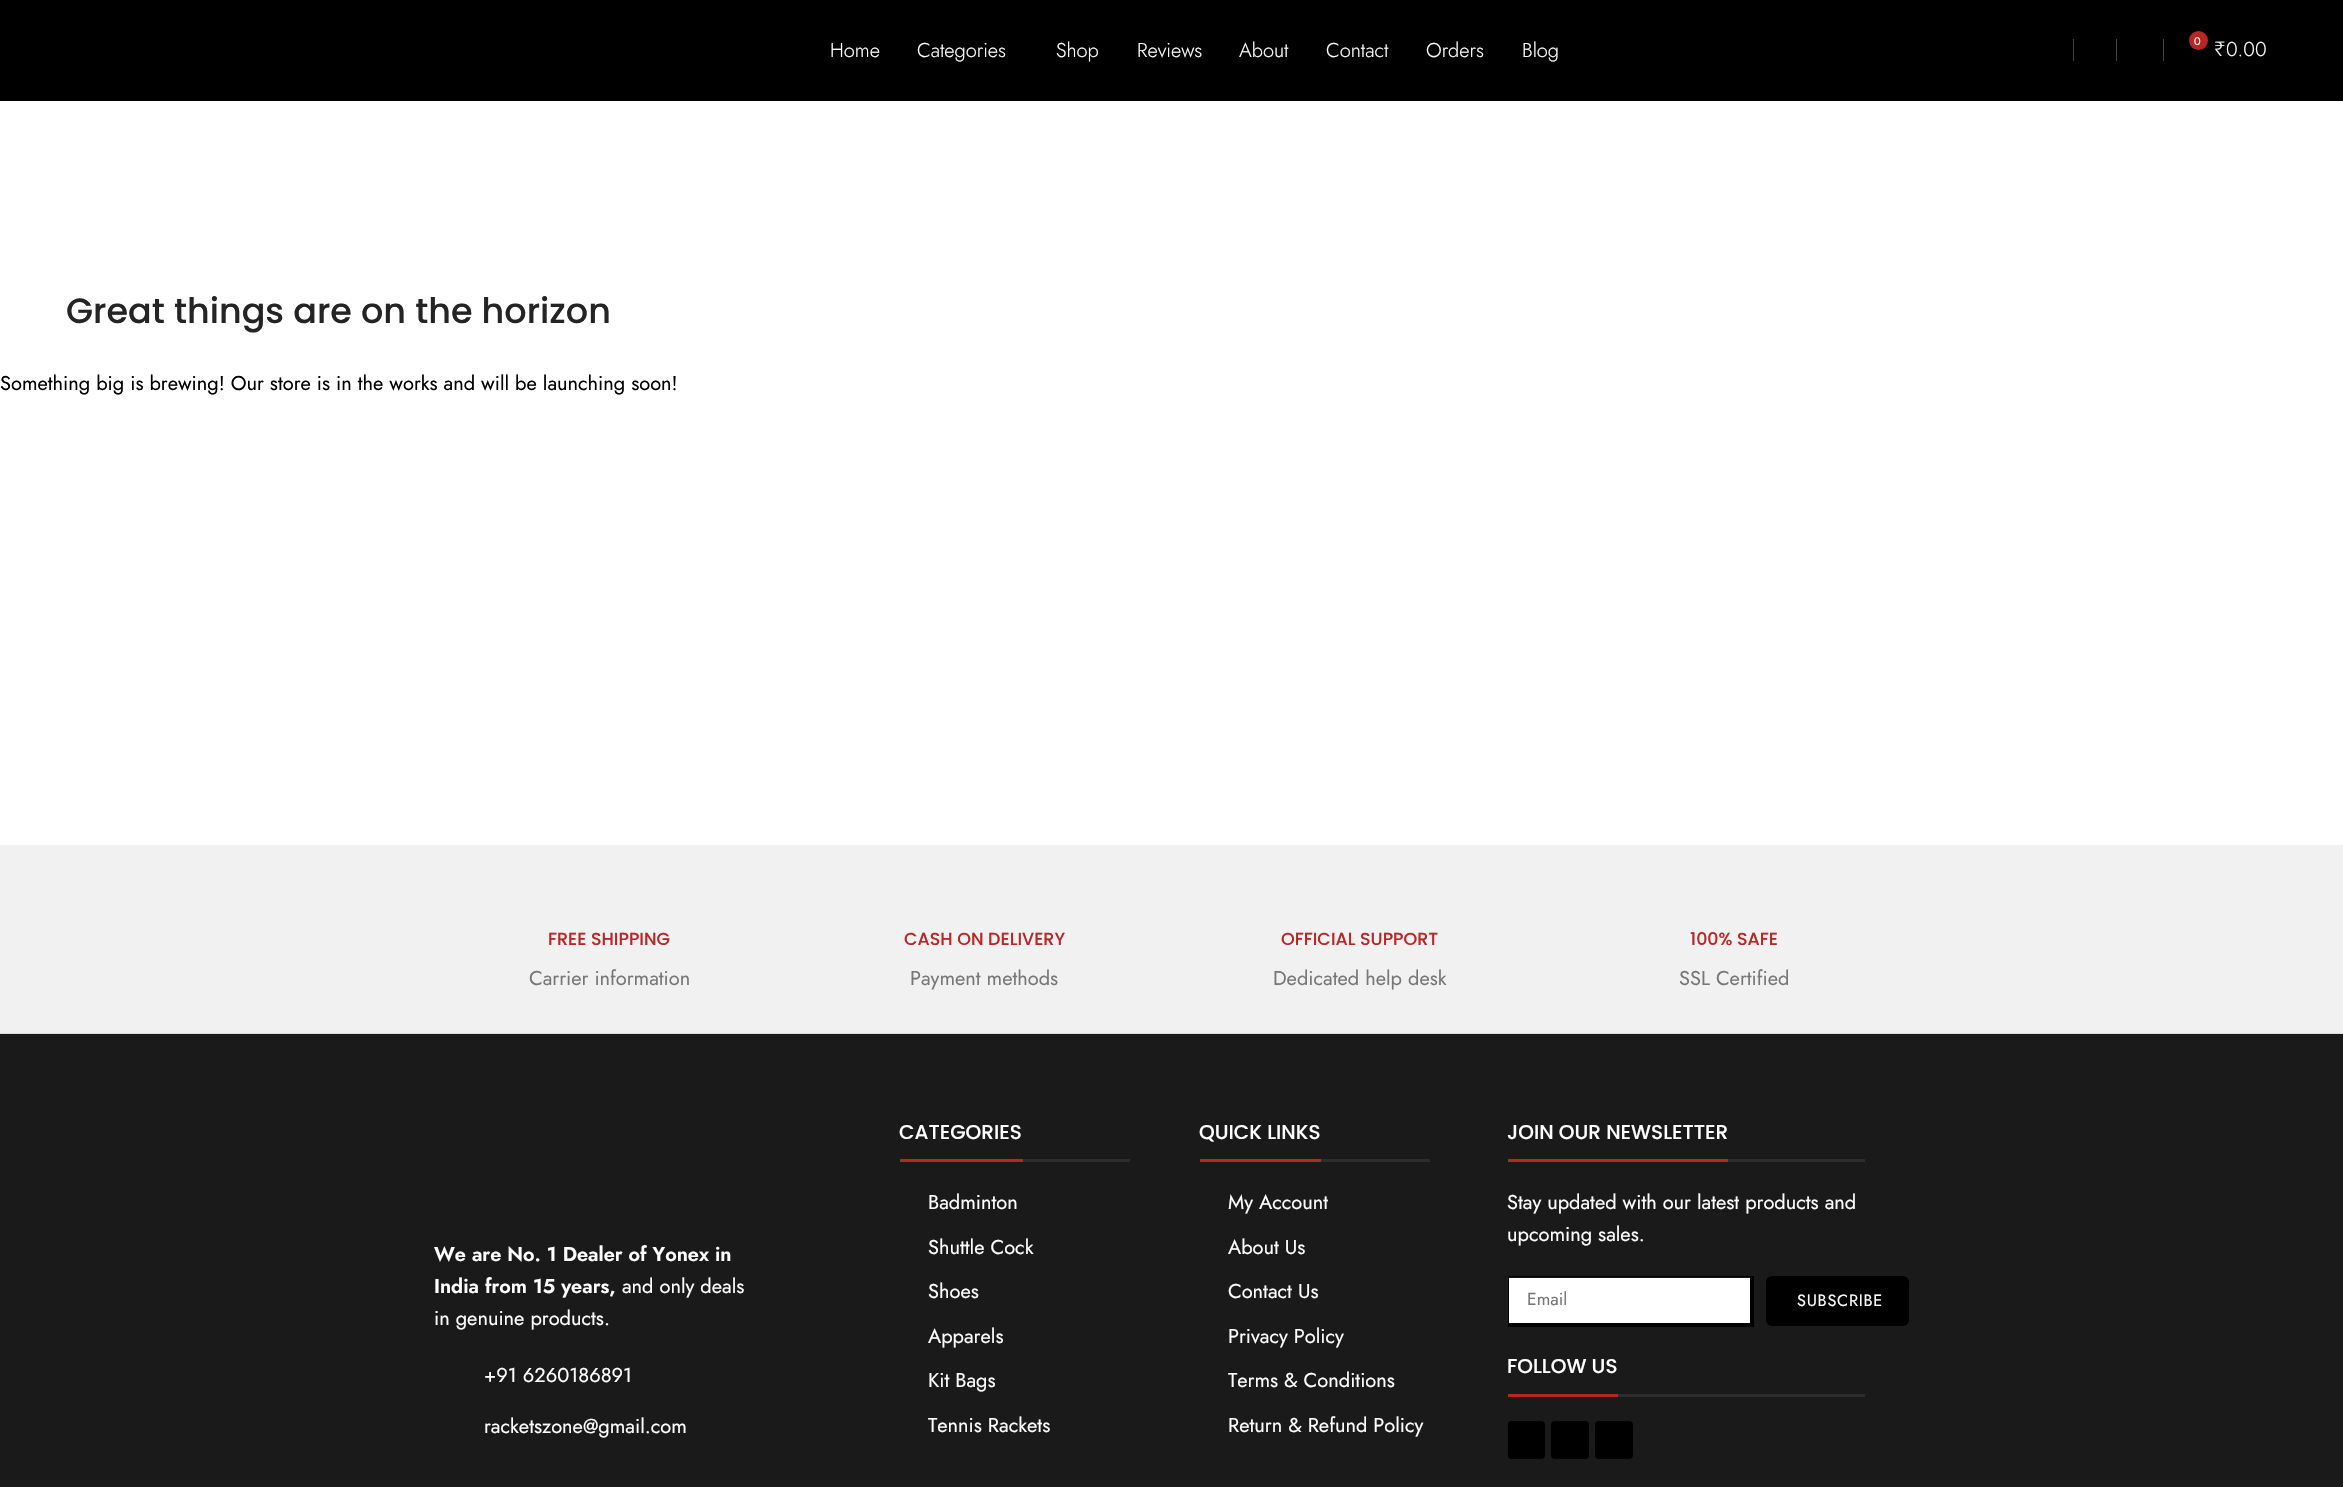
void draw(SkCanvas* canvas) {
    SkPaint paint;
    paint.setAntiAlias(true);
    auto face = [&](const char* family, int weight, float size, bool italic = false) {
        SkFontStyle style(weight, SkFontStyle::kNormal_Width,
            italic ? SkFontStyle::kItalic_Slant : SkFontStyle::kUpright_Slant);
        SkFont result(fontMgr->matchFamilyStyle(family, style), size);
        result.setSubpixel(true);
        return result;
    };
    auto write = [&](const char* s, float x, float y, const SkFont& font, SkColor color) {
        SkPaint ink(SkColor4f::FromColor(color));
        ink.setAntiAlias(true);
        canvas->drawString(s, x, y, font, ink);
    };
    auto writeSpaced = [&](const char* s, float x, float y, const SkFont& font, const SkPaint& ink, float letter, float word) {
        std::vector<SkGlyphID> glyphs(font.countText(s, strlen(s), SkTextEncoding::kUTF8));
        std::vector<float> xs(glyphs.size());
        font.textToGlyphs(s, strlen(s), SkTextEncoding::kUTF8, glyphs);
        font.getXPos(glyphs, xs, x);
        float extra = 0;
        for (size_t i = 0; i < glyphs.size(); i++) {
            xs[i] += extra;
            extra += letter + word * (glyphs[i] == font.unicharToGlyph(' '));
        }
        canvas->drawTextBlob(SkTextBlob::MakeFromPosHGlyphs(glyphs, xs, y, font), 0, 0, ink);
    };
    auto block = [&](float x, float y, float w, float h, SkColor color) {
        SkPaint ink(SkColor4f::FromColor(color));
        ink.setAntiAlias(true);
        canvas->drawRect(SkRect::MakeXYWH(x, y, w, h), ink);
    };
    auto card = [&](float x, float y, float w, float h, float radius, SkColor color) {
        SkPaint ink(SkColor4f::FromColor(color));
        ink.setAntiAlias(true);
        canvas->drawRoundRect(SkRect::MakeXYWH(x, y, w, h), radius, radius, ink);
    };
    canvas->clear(SK_ColorWHITE);
    block(0, 0, 2343, 101, SK_ColorBLACK);
    auto kFont1 = face("Jost", 300, 20);
    write("Home", 830, 57, kFont1, SK_ColorWHITE);
    write("Categories", 917, 57, kFont1, SK_ColorWHITE);
    write("Shop", 1056, 57, kFont1, SK_ColorWHITE);
    write("Reviews", 1137, 57, kFont1, SK_ColorWHITE);
    write("About", 1239, 57, kFont1, SK_ColorWHITE);
    write("Contact", 1326, 57, kFont1, SK_ColorWHITE);
    write("Orders", 1426, 57, kFont1, SK_ColorWHITE);
    write("Blog", 1522, 57, kFont1, SK_ColorWHITE);
    block(2073, 39, 1, 22, SkColorSetRGB(64, 64, 64));
    block(2116, 39, 1, 22, SkColorSetRGB(64, 64, 64));
    block(2163, 39, 1, 22, SkColorSetRGB(64, 64, 64));
    paint.setColor(SkColorSetRGB(184, 38, 38));
    canvas->drawCircle(2198.5f, 40.5f, 9.5f, paint);
    auto kFont2 = face("Jost", 400, 11);
    write("0", 2194, 45, kFont2, SK_ColorWHITE);
    auto kFont3 = face("Noto Sans", 300, 20);
    write("₹", 2214, 56, kFont3, SK_ColorWHITE);
    write("0.00", 2226, 56, kFont1, SK_ColorWHITE);
    auto kFont4 = face("Poppins", 500, 35);
    write("Great things are on the horizon", 66, 323, kFont4, SkColorSetRGB(36, 36, 36));
    auto kFont5 = face("Jost", 400, 20);
    write("Something big is brewing! Our store is in the works and will be launching soon!", 0, 390, kFont5, SK_ColorBLACK);
    block(0, 845, 2343, 188, SkColorSetRGB(241, 241, 241));
    block(0, 1033, 2343, 1, SkColorSetRGB(219, 219, 219));
    auto kFont6 = face("Poppins", 500, 17.5f);
    write("FREE SHIPPING", 548, 945, kFont6, SkColorSetRGB(184, 38, 38));
    write("Carrier information", 529, 985, kFont5, SkColorSetRGB(119, 119, 119));
    write("CASH ON DELIVERY", 904, 945, kFont6, SkColorSetRGB(184, 38, 38));
    write("Payment methods", 910, 985, kFont5, SkColorSetRGB(119, 119, 119));
    write("OFFICIAL SUPPORT", 1281, 945, kFont6, SkColorSetRGB(184, 38, 38));
    write("Dedicated help desk", 1273, 985, kFont5, SkColorSetRGB(119, 119, 119));
    write("100% SAFE", 1690, 945, kFont6, SkColorSetRGB(184, 38, 38));
    write("SSL Certified", 1679, 985, kFont5, SkColorSetRGB(119, 119, 119));
    block(0, 1034, 2343, 453, SkColorSetRGB(26, 26, 26));
    auto kFont7 = face("Jost", 600, 20);
    write("We are No. 1 Dealer of Yonex in", 434, 1261, kFont7, SK_ColorWHITE);
    write("India from 15 years,", 434, 1293, kFont7, SK_ColorWHITE);
    write("and only deals", 622, 1293, kFont5, SK_ColorWHITE);
    write("in genuine products.", 434, 1325, kFont5, SK_ColorWHITE);
    write("+91 6260186891", 484, 1382, kFont5, SK_ColorWHITE);
    write("racketszone@gmail.com", 484, 1433, kFont5, SK_ColorWHITE);
    block(1023, 1159, 107, 3, SkColorSetRGB(45, 45, 45));
    block(900, 1159, 123, 3, SkColorSetRGB(184, 38, 38));
    auto kFont8 = face("Poppins", 500, 20);
    write("CATEGORIES", 899, 1139, kFont8, SK_ColorWHITE);
    write("Badminton", 928, 1209, kFont5, SK_ColorWHITE);
    write("Shuttle Cock", 928, 1254, kFont5, SK_ColorWHITE);
    write("Shoes", 928, 1298, kFont5, SK_ColorWHITE);
    write("Apparels", 928, 1343, kFont5, SK_ColorWHITE);
    write("Kit Bags", 928, 1387, kFont5, SK_ColorWHITE);
    write("Tennis Rackets", 928, 1432, kFont5, SK_ColorWHITE);
    block(1321, 1159, 109, 3, SkColorSetRGB(45, 45, 45));
    block(1200, 1159, 121, 3, SkColorSetRGB(184, 38, 38));
    write("QUICK LINKS", 1199, 1139, kFont8, SK_ColorWHITE);
    write("My Account", 1228, 1209, kFont5, SK_ColorWHITE);
    write("About Us", 1228, 1254, kFont5, SK_ColorWHITE);
    write("Contact Us", 1228, 1298, kFont5, SK_ColorWHITE);
    write("Privacy Policy", 1228, 1343, kFont5, SK_ColorWHITE);
    write("Terms & Conditions", 1228, 1387, kFont5, SK_ColorWHITE);
    write("Return & Refund Policy", 1228, 1432, kFont5, SK_ColorWHITE);
    block(1728, 1159, 137, 3, SkColorSetRGB(45, 45, 45));
    block(1508, 1159, 220, 3, SkColorSetRGB(184, 38, 38));
    write("JOIN OUR NEWSLETTER", 1507, 1139, kFont8, SK_ColorWHITE);
    write("Stay updated with our latest products and", 1507, 1209, kFont5, SK_ColorWHITE);
    write("upcoming sales.", 1507, 1241, kFont5, SK_ColorWHITE);
    block(1509, 1278, 241, 45, SK_ColorWHITE);
    block(1508, 1276, 246, 1, SK_ColorBLACK);
    block(1750, 1276, 4, 50, SK_ColorBLACK);
    block(1508, 1323, 246, 4, SK_ColorBLACK);
    block(1508, 1276, 1, 50, SK_ColorBLACK);
    auto kFont9 = face("Jost", 400, 17.5f);
    write("Email", 1527, 1305, kFont9, SkColorSetRGB(119, 119, 119));
    card(1766, 1276, 143, 50, 6, SK_ColorBLACK);
    auto kFont10 = face("Jost", 400, 16.25f);
    paint.setColor(SK_ColorWHITE);
    writeSpaced("SUBSCRIBE", 1797, 1306, kFont10, paint, 0.75f, 0);
    block(1618, 1394, 247, 3, SkColorSetRGB(45, 45, 45));
    block(1508, 1394, 110, 3, SkColorSetRGB(184, 38, 38));
    write("FOLLOW US", 1507, 1373, kFont8, SK_ColorWHITE);
    card(1508, 1421, 37, 38, 4, SK_ColorBLACK);
    card(1551, 1421, 38, 38, 4, SK_ColorBLACK);
    card(1595, 1421, 38, 38, 4, SK_ColorBLACK);
}
